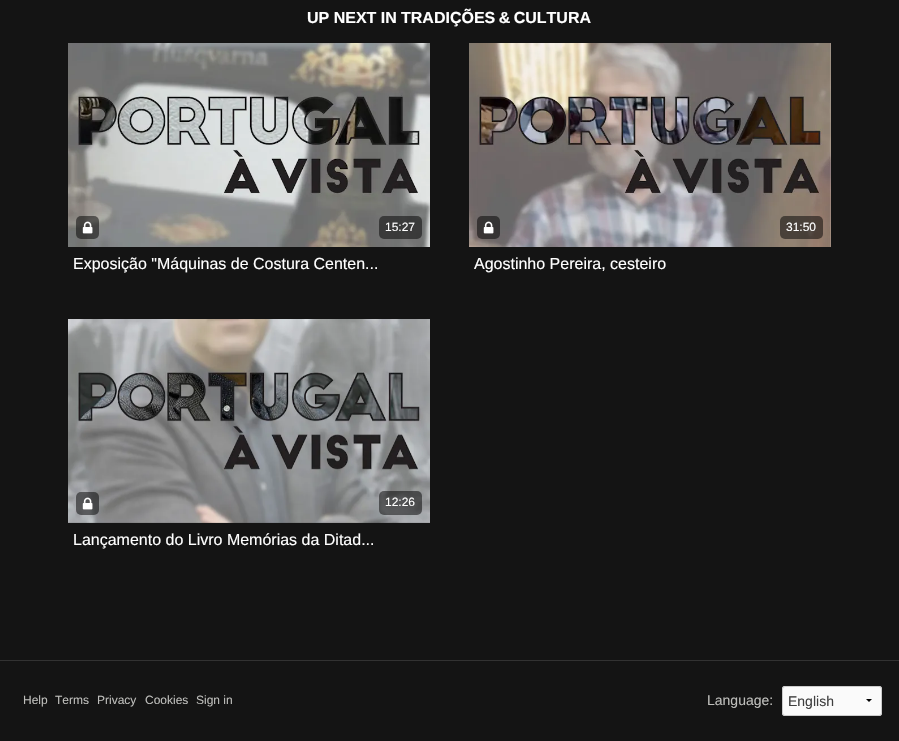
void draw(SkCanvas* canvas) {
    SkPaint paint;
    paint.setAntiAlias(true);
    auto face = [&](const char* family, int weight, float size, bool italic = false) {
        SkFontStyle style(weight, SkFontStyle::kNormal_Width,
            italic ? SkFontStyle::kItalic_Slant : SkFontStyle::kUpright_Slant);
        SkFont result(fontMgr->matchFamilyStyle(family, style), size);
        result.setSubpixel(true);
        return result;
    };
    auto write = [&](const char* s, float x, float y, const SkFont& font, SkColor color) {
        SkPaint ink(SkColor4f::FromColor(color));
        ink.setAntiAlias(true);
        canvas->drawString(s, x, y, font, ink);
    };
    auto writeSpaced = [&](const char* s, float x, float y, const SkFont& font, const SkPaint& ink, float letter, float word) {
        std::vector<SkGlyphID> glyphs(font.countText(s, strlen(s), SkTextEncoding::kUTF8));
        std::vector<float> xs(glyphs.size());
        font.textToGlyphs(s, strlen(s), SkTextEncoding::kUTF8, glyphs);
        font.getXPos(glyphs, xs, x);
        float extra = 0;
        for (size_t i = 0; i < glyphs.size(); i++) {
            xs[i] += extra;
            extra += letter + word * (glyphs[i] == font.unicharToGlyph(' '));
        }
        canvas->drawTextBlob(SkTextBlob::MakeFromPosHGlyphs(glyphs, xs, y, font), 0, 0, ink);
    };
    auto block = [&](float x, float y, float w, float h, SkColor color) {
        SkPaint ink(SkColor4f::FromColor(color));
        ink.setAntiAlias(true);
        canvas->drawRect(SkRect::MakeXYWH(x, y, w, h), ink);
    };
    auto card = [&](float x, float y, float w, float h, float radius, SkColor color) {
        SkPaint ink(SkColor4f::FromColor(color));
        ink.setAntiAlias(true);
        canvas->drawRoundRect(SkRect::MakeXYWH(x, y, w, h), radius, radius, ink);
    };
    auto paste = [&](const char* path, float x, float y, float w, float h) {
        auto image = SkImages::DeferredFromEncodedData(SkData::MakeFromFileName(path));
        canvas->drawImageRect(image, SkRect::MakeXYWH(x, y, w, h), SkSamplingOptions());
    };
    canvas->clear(SkColorSetRGB(20, 20, 20));
    auto kFont1 = face("Liberation Sans", 700, 16);
    write("UP NEXT IN", 307, 23, kFont1, SK_ColorWHITE);
    paint.setColor(SK_ColorWHITE);
    writeSpaced("TRADIÇÕES & CULTURA", 401, 23, kFont1, paint, 0, -1);
    paste("pic1.png", 68, 43, 362, 204);
    card(76, 216, 23, 23, 5, SkColorSetARGB(128, 0, 0, 0));
    paste("pic2.png", 82, 221, 11, 13);
    card(379, 216, 43, 23, 5, SkColorSetARGB(128, 0, 0, 0));
    auto kFont2 = face("Liberation Sans", 400, 12);
    write("15:27", 385, 231, kFont2, SK_ColorWHITE);
    auto kFont3 = face("Liberation Sans", 400, 16);
    write("Exposição \"Máquinas de Costura Centen...", 73, 269, kFont3, SK_ColorWHITE);
    paste("pic3.png", 469, 43, 362, 204);
    card(477, 216, 23, 23, 5, SkColorSetARGB(128, 0, 0, 0));
    paste("pic4.png", 483, 221, 11, 13);
    card(780, 216, 43, 23, 5, SkColorSetARGB(128, 0, 0, 0));
    write("31:50", 786, 231, kFont2, SK_ColorWHITE);
    write("Agostinho Pereira, cesteiro", 474, 269, kFont3, SK_ColorWHITE);
    paste("pic5.png", 68, 319, 362, 204);
    card(76, 492, 23, 23, 5, SkColorSetARGB(128, 0, 0, 0));
    paste("pic6.png", 82, 497, 11, 13);
    card(379, 491, 43, 24, 5, SkColorSetARGB(128, 0, 0, 0));
    write("12:26", 385, 506, kFont2, SK_ColorWHITE);
    write("Lançamento do Livro Memórias da Ditad...", 73, 545, kFont3, SK_ColorWHITE);
    block(0, 660, 899, 1, SkColorSetRGB(50, 50, 50));
    write("Help", 23, 704, kFont2, SkColorSetRGB(190, 190, 187));
    write("Terms", 55, 704, kFont2, SkColorSetRGB(190, 190, 187));
    write("Privacy", 97, 704, kFont2, SkColorSetRGB(190, 190, 187));
    write("Cookies", 145, 704, kFont2, SkColorSetRGB(190, 190, 187));
    write("Sign in", 196, 704, kFont2, SkColorSetRGB(190, 190, 187));
    auto kFont4 = face("Liberation Sans", 400, 14);
    write("Language:", 707, 705, kFont4, SkColorSetRGB(190, 190, 187));
    card(782, 686, 100, 30, 3, SkColorSetRGB(250, 250, 250));
    paint.setColor(SK_ColorBLACK);
    canvas->drawPath(SkPathBuilder().moveTo(872, 699).lineTo(869, 702).lineTo(866, 699).close().detach(), paint);
    paint.setStyle(SkPaint::kStroke_Style);
    paint.setStrokeWidth(1);
    paint.setColor(SkColorSetRGB(204, 204, 204));
    canvas->drawRoundRect(SkRect::MakeXYWH(782.5f, 686.5f, 99, 29), 2.5f, 2.5f, paint);
    write("English", 788, 706, kFont4, SkColorSetRGB(63, 63, 63));
}
